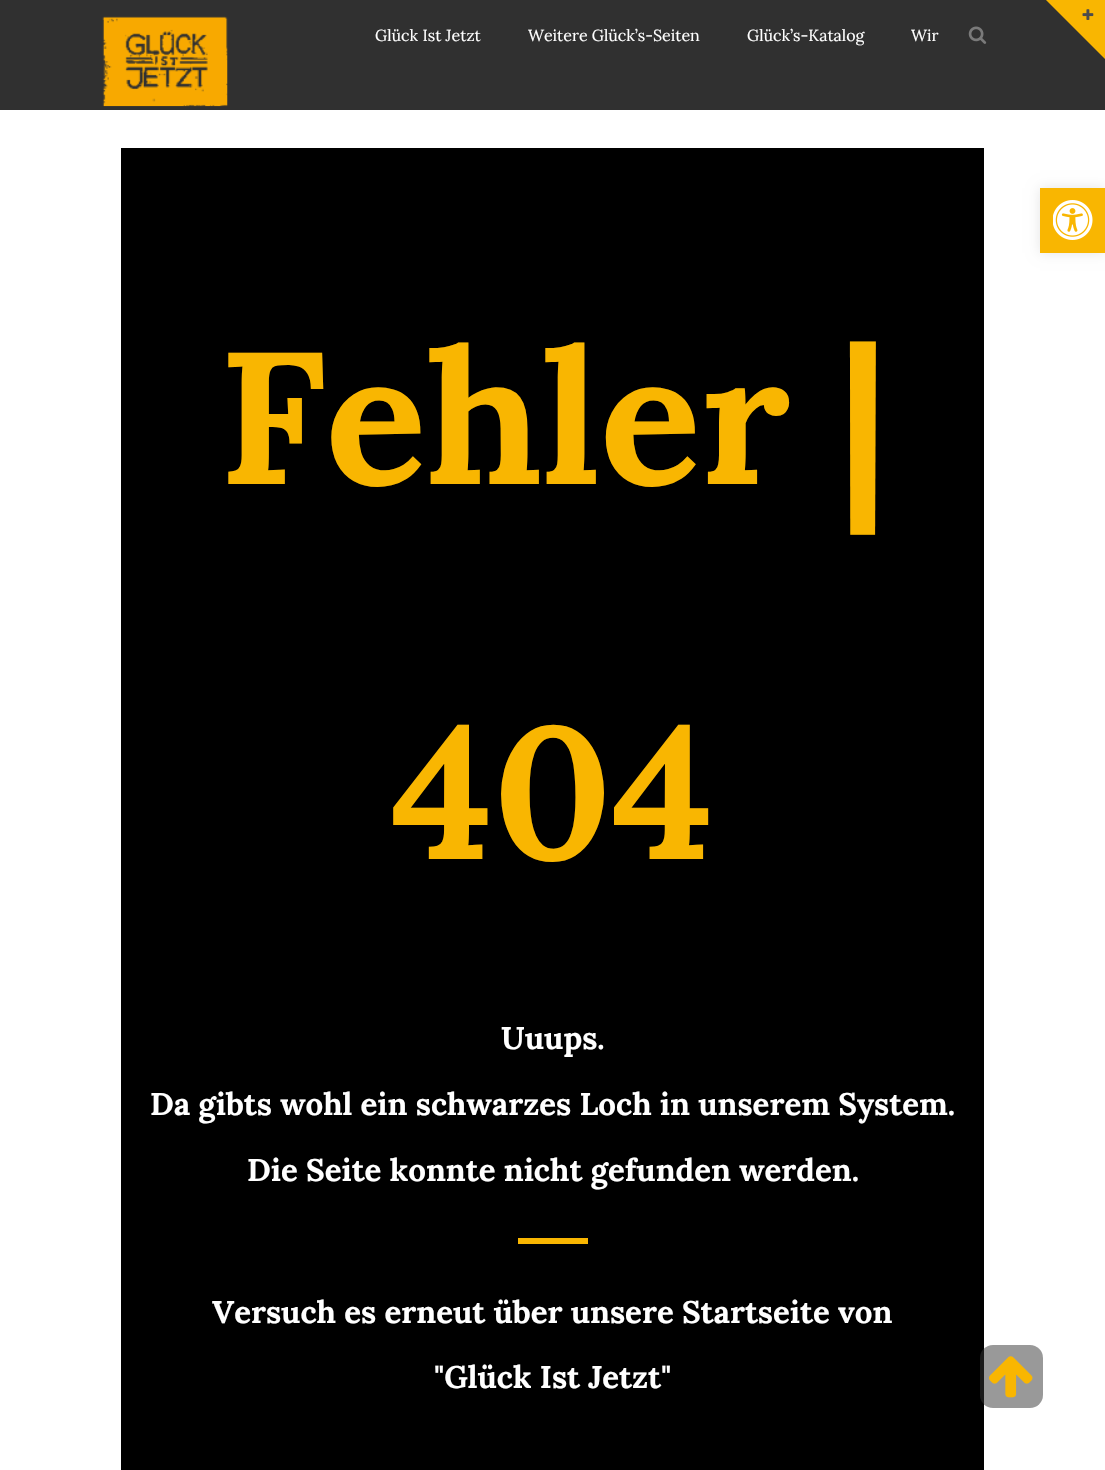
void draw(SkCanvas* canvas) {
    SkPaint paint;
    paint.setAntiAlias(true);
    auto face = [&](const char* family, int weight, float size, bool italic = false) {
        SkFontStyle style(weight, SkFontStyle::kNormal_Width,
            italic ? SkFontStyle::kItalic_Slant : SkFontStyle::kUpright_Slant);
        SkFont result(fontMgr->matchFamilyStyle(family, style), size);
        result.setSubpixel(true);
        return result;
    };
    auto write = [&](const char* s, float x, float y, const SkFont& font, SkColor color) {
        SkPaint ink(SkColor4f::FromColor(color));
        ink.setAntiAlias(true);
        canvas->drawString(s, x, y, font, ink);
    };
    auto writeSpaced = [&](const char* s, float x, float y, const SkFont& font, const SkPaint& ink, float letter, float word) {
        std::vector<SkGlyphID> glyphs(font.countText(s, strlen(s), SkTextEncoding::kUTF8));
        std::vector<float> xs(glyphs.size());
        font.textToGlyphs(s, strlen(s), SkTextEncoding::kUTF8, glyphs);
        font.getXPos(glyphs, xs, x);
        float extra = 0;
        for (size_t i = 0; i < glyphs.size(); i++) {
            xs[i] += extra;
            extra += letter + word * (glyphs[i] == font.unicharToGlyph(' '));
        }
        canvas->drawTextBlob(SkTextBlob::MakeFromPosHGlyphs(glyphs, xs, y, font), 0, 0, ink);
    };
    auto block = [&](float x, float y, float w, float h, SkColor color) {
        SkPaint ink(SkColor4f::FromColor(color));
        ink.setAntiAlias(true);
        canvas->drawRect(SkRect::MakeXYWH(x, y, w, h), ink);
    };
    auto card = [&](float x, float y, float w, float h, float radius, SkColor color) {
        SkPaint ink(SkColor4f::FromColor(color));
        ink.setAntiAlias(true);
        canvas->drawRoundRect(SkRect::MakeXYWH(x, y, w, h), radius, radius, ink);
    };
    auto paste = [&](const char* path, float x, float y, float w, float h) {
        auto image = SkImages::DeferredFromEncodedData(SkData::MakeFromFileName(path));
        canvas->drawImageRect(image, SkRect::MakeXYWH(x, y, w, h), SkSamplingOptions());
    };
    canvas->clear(SkColorSetRGB(48, 48, 48));
    paste("pic1.png", 102, 16, 126, 91);
    auto kFont1 = face("Lora", 400, 16);
    write("Glück Ist Jetzt", 375, 41, kFont1, SK_ColorWHITE);
    write("Weitere Glück’s-Seiten", 528, 41, kFont1, SK_ColorWHITE);
    write("Glück’s-Katalog", 747, 41, kFont1, SK_ColorWHITE);
    write("Wir", 911, 41, kFont1, SK_ColorWHITE);
    paste("pic2.png", 968, 26, 19, 18);
    block(0, 110, 1105, 1360, SK_ColorWHITE);
    block(121, 148, 863, 1322, SK_ColorBLACK);
    auto kFont2 = face("Lora", 700, 187.5f);
    paint.setColor(SkColorSetRGB(249, 182, 1));
    writeSpaced("Fehler |", 219, 484, kFont2, paint, -0.5f, 0);
    writeSpaced("404", 391, 859, kFont2, paint, -0.5f, 0);
    auto kFont3 = face("Lora", 700, 31.25f);
    write("Uuups.", 501, 1049, kFont3, SK_ColorWHITE);
    write("Da gibts wohl ein schwarzes Loch in unserem System.", 150, 1115, kFont3, SK_ColorWHITE);
    write("Die Seite konnte nicht gefunden werden.", 247, 1181, kFont3, SK_ColorWHITE);
    block(518, 1238, 70, 6, SkColorSetRGB(249, 182, 1));
    write("Versuch es erneut über unsere Startseite von", 212, 1323, kFont3, SK_ColorWHITE);
    write("\"Glück Ist Jetzt\"", 434, 1388, kFont3, SK_ColorWHITE);
    canvas->drawPath(SkPathBuilder().moveTo(1105, -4).lineTo(1105, 59).lineTo(1042, -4).close().detach(), paint);
    paste("pic3.png", 1082, 9, 12, 11);
    paint.setColor(SkColorSetARGB(26, 0, 0, 0));
    paint.setMaskFilter(SkMaskFilter::MakeBlur(kNormal_SkBlurStyle, 6));
    canvas->drawRect(SkRect::MakeXYWH(1040, 188, 65, 65), paint);
    paint.setMaskFilter(nullptr);
    block(1040, 188, 65, 65, SkColorSetRGB(249, 182, 1));
    paste("pic4.png", 1053, 200, 40, 40);
    card(980, 1345, 63, 63, 13, SkColorSetARGB(128, 51, 51, 51));
    paste("pic5.png", 989, 1356, 44, 42);
}
